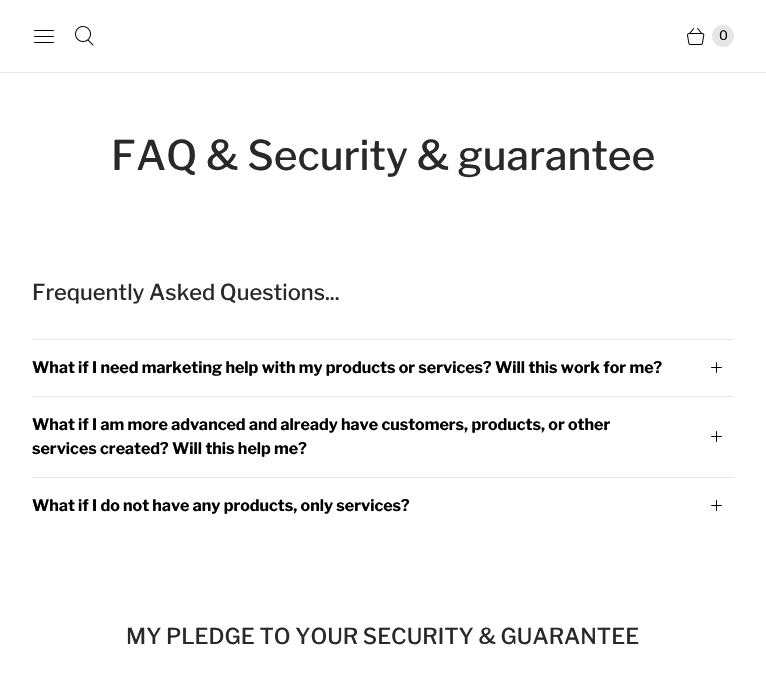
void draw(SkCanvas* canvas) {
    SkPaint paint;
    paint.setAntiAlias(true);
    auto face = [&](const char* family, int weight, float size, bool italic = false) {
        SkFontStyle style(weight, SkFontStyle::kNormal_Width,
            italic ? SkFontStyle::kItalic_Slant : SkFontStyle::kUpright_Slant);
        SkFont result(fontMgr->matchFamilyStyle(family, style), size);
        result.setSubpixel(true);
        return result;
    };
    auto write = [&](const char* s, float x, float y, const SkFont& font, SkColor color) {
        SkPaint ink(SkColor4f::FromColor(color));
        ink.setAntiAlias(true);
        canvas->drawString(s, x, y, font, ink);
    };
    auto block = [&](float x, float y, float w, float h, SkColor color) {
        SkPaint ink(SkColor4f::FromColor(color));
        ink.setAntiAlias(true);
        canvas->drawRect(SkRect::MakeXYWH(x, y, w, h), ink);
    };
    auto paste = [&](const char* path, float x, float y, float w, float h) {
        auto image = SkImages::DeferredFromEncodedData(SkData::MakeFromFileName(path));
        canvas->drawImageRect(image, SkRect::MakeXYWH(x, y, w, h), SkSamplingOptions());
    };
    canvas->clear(SK_ColorWHITE);
    block(0, 72, 766, 1, SkColorSetRGB(231, 231, 231));
    paste("pic1.png", 34, 30, 20, 13);
    paste("pic2.png", 75, 26, 19, 20);
    paste("pic3.png", 687, 28, 18, 17);
    paint.setColor(SkColorSetRGB(230, 230, 230));
    canvas->drawCircle(723, 36, 11, paint);
    auto kFont1 = face("Libre Franklin", 400, 13);
    write("0", 719, 40, kFont1, SK_ColorBLACK);
    auto kFont2 = face("Libre Franklin", 500, 40.75f);
    write("FAQ & Security & guarantee", 111, 170, kFont2, SkColorSetRGB(41, 41, 41));
    auto kFont3 = face("Libre Franklin", 500, 21.9f);
    write("Frequently Asked Questions...", 32, 300, kFont3, SkColorSetRGB(41, 41, 41));
    block(32, 339, 702, 1, SkColorSetRGB(231, 231, 231));
    auto kFont4 = face("Libre Franklin", 700, 16);
    write("What if I need marketing help with my products or services? Will this work for me?", 32, 373, kFont4, SK_ColorBLACK);
    paste("pic4.png", 711, 362, 11, 11);
    block(32, 396, 702, 1, SkColorSetRGB(231, 231, 231));
    write("What if I am more advanced and already have customers, products, or other", 32, 430, kFont4, SK_ColorBLACK);
    write("services created? Will this help me?", 32, 454, kFont4, SK_ColorBLACK);
    paste("pic4.png", 711, 431, 11, 11);
    block(32, 477, 702, 1, SkColorSetRGB(231, 231, 231));
    write("What if I do not have any products, only services?", 32, 511, kFont4, SK_ColorBLACK);
    paste("pic4.png", 711, 500, 11, 11);
    write("MY PLEDGE TO YOUR SECURITY & GUARANTEE", 126, 644, kFont3, SkColorSetRGB(41, 41, 41));
}
